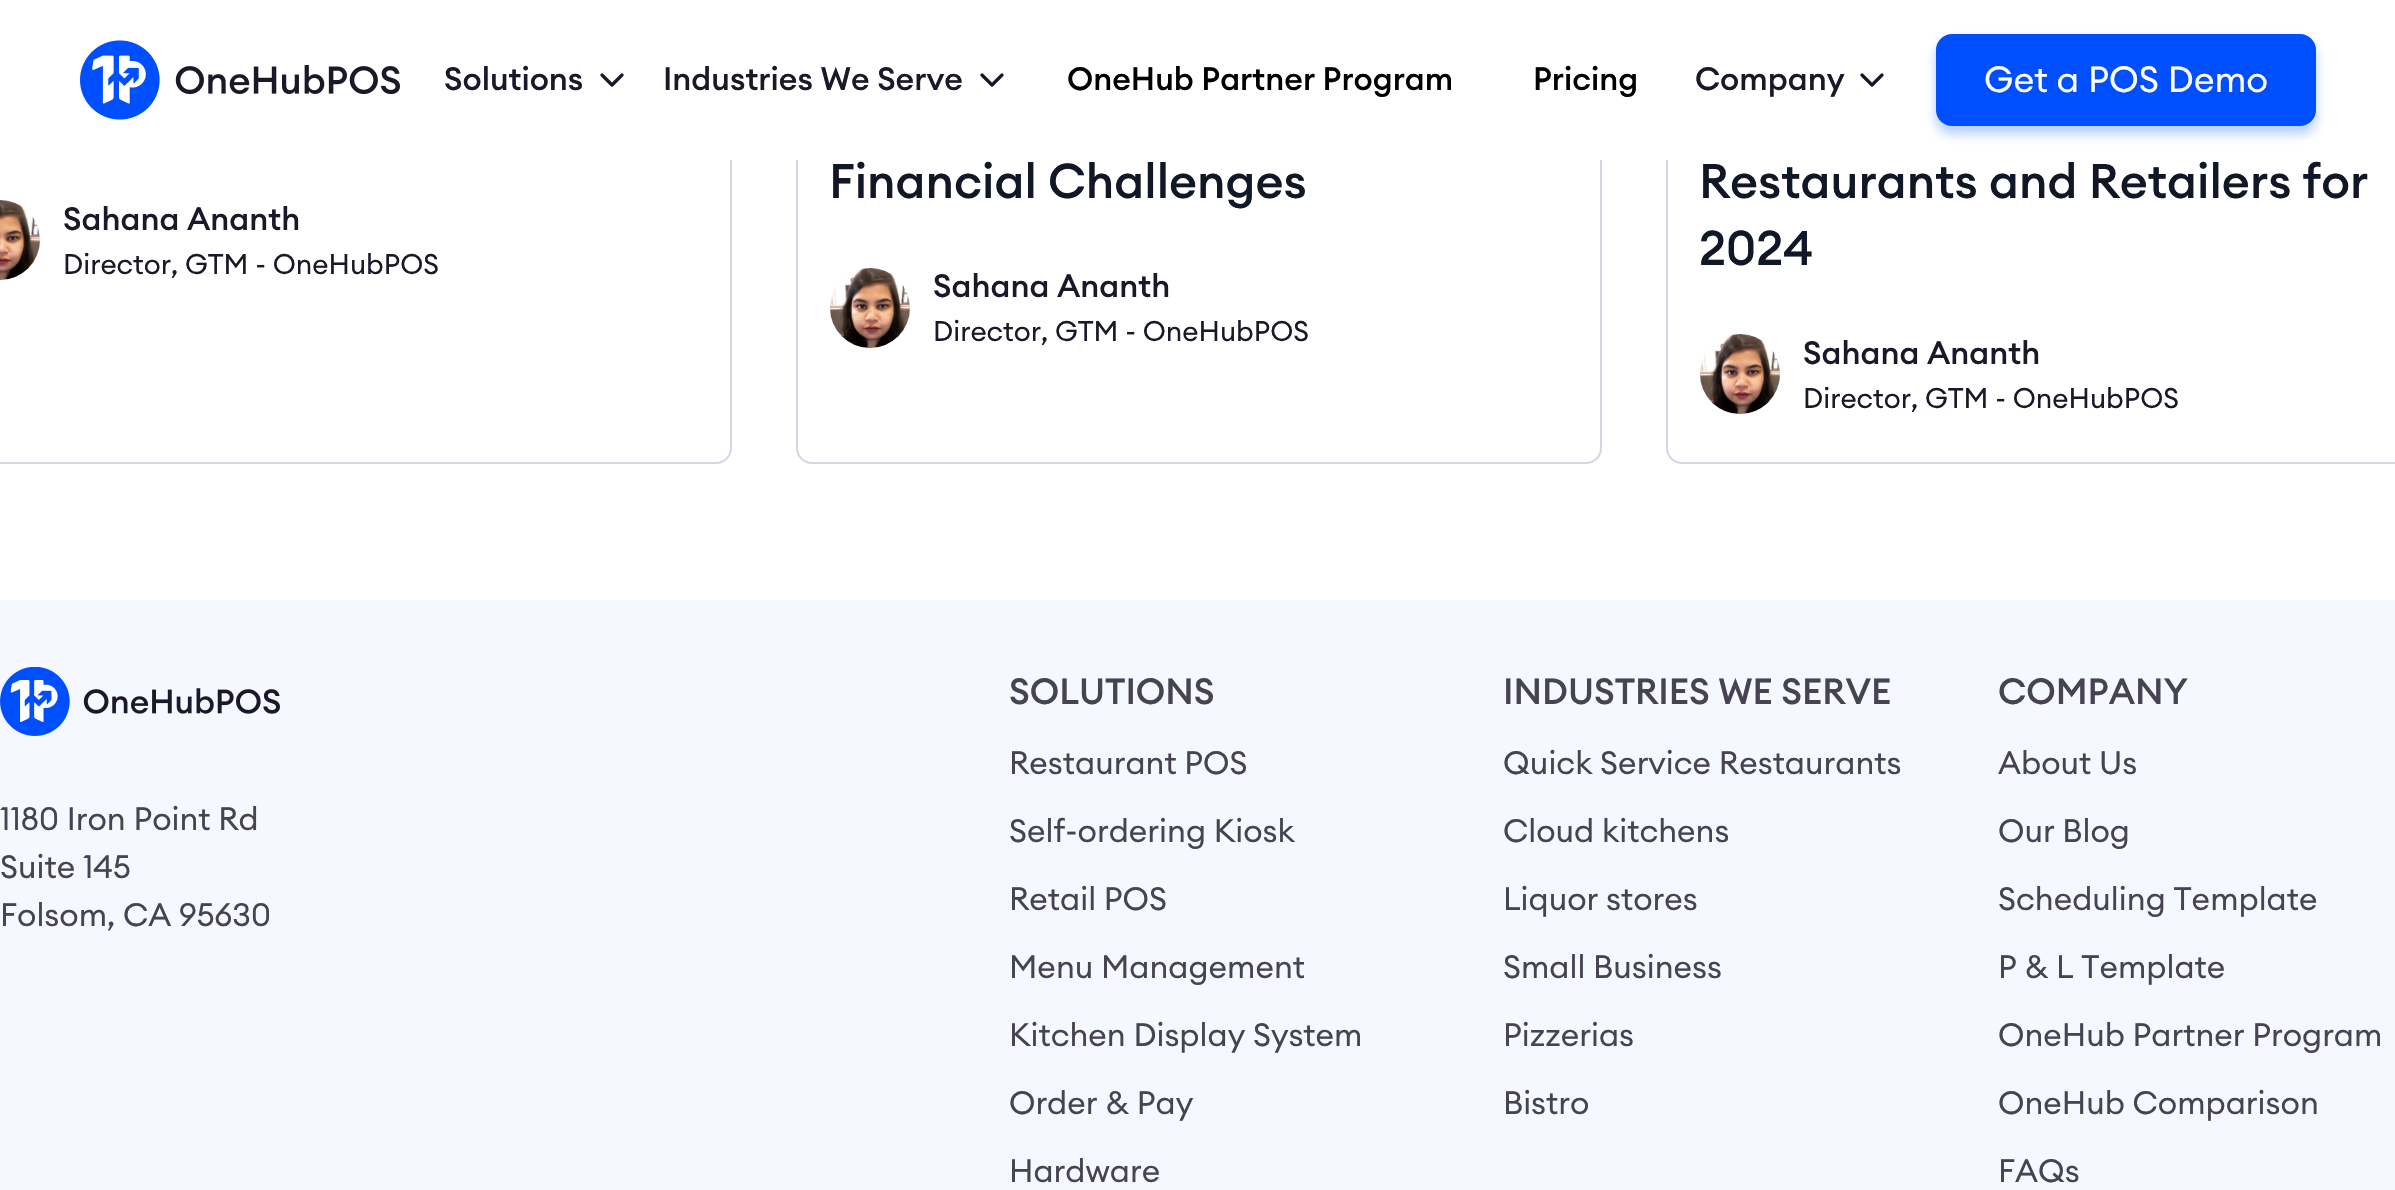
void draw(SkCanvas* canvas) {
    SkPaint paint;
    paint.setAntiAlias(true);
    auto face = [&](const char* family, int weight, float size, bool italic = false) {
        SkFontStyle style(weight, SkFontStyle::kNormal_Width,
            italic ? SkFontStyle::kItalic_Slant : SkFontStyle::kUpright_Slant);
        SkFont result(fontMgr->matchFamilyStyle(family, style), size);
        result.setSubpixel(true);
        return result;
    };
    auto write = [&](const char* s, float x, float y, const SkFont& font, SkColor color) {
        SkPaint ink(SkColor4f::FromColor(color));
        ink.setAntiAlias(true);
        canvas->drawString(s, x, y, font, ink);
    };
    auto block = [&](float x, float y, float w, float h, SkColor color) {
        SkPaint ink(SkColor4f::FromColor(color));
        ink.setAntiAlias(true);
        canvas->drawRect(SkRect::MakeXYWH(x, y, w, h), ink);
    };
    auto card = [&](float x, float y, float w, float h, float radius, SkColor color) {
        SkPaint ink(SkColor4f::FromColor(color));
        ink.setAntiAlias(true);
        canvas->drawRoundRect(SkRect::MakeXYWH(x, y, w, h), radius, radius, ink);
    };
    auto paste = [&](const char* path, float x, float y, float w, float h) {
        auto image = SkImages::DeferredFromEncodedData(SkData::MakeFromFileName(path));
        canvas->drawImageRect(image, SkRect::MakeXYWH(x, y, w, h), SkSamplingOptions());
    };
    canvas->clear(SK_ColorWHITE);
    paint.setStyle(SkPaint::kStroke_Style);
    paint.setStrokeWidth(2);
    paint.setColor(SkColorSetRGB(217, 212, 225));
    canvas->drawRoundRect(SkRect::MakeXYWH(-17, -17, 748, 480), 15, 15, paint);
    canvas->drawRoundRect(SkRect::MakeXYWH(797, -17, 804, 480), 15, 15, paint);
    canvas->drawRoundRect(SkRect::MakeXYWH(1667, -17, 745, 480), 15, 15, paint);
    block(730, 0, 938, 160, SK_ColorWHITE);
    paste("pic1.png", 80, 40, 320, 80);
    auto kFont1 = face("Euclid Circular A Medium", 500, 32);
    write("Solutions", 444, 90, kFont1, SkColorSetRGB(29, 23, 42));
    paint.setStrokeWidth(3.3f);
    paint.setStrokeCap(SkPaint::kRound_Cap);
    paint.setStrokeJoin(SkPaint::kRound_Join);
    paint.setColor(SkColorSetRGB(29, 23, 42));
    canvas->drawPath(SkPathBuilder().moveTo(602, 75).lineTo(612, 85).lineTo(622, 75).detach(), paint);
    write("Industries We Serve", 663, 90, kFont1, SkColorSetRGB(29, 23, 42));
    canvas->drawPath(SkPathBuilder().moveTo(982, 75).lineTo(992, 85).lineTo(1002, 75).detach(), paint);
    write("OneHub Partner Program", 1067, 90, kFont1, SK_ColorBLACK);
    write("Pricing", 1533, 90, kFont1, SK_ColorBLACK);
    write("Company", 1695, 90, kFont1, SkColorSetRGB(29, 23, 42));
    canvas->drawPath(SkPathBuilder().moveTo(1862, 75).lineTo(1872, 85).lineTo(1882, 75).detach(), paint);
    paint.setStyle(SkPaint::kFill_Style);
    paint.setColor(SkColorSetARGB(102, 62, 131, 252));
    paint.setMaskFilter(SkMaskFilter::MakeBlur(kNormal_SkBlurStyle, 6));
    canvas->drawRoundRect(SkRect::MakeXYWH(1936, 42, 380, 92), 16, 16, paint);
    paint.setMaskFilter(nullptr);
    card(1936, 34, 380, 92, 16, SkColorSetRGB(0, 79, 255));
    auto kFont2 = face("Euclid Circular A", 400, 36);
    write("Get a POS Demo", 1984, 92, kFont2, SK_ColorWHITE);
    paste("pic2.png", 0, 200, 40, 80);
    write("Sahana Ananth", 63, 230, kFont1, SkColorSetRGB(29, 23, 42));
    auto kFont3 = face("Euclid Circular A", 400, 28);
    write("Director, GTM - OneHubPOS", 63, 274, kFont3, SkColorSetRGB(29, 23, 42));
    auto kFont4 = face("Euclid Circular A Medium", 500, 48);
    write("Financial Challenges", 829, 198, kFont4, SkColorSetRGB(16, 24, 40));
    paste("pic3.png", 830, 268, 80, 80);
    write("Sahana Ananth", 933, 297, kFont1, SkColorSetRGB(29, 23, 42));
    write("Director, GTM - OneHubPOS", 933, 341, kFont3, SkColorSetRGB(29, 23, 42));
    write("Restaurants and Retailers for", 1699, 198, kFont4, SkColorSetRGB(16, 24, 40));
    write("2024", 1699, 265, kFont4, SkColorSetRGB(16, 24, 40));
    paste("pic4.png", 1700, 334, 80, 80);
    write("Sahana Ananth", 1803, 364, kFont1, SkColorSetRGB(29, 23, 42));
    write("Director, GTM - OneHubPOS", 1803, 408, kFont3, SkColorSetRGB(29, 23, 42));
    block(0, 600, 2395, 590, SkColorSetRGB(245, 248, 255));
    paste("pic5.png", 0, 667, 280, 69);
    auto kFont5 = face("Euclid Circular A", 400, 32);
    write("1180 Iron Point Rd", 0, 830, kFont5, SkColorSetRGB(72, 67, 83));
    write("Suite 145", 0, 878, kFont5, SkColorSetRGB(72, 67, 83));
    write("Folsom, CA 95630", 0, 926, kFont5, SkColorSetRGB(72, 67, 83));
    auto kFont6 = face("Euclid Circular A Medium", 500, 36);
    write("SOLUTIONS", 1009, 704, kFont6, SkColorSetRGB(72, 67, 83));
    write("Restaurant POS", 1009, 774, kFont5, SkColorSetRGB(72, 67, 83));
    write("Self-ordering Kiosk", 1009, 842, kFont5, SkColorSetRGB(72, 67, 83));
    write("Retail POS", 1009, 910, kFont5, SkColorSetRGB(72, 67, 83));
    write("Menu Management", 1009, 978, kFont5, SkColorSetRGB(72, 67, 83));
    write("Kitchen Display System", 1009, 1046, kFont5, SkColorSetRGB(72, 67, 83));
    write("Order & Pay", 1009, 1114, kFont5, SkColorSetRGB(72, 67, 83));
    write("Hardware", 1009, 1182, kFont5, SkColorSetRGB(72, 67, 83));
    write("INDUSTRIES WE SERVE", 1503, 704, kFont6, SkColorSetRGB(72, 67, 83));
    write("Quick Service Restaurants", 1503, 774, kFont5, SkColorSetRGB(72, 67, 83));
    write("Cloud kitchens", 1503, 842, kFont5, SkColorSetRGB(72, 67, 83));
    write("Liquor stores", 1503, 910, kFont5, SkColorSetRGB(72, 67, 83));
    write("Small Business", 1503, 978, kFont5, SkColorSetRGB(72, 67, 83));
    write("Pizzerias", 1503, 1046, kFont5, SkColorSetRGB(72, 67, 83));
    write("Bistro", 1503, 1114, kFont5, SkColorSetRGB(72, 67, 83));
    write("COMPANY", 1998, 704, kFont6, SkColorSetRGB(72, 67, 83));
    write("About Us", 1998, 774, kFont5, SkColorSetRGB(72, 67, 83));
    write("Our Blog", 1998, 842, kFont5, SkColorSetRGB(72, 67, 83));
    write("Scheduling Template", 1998, 910, kFont5, SkColorSetRGB(72, 67, 83));
    write("P & L Template", 1998, 978, kFont5, SkColorSetRGB(72, 67, 83));
    write("OneHub Partner Program", 1998, 1046, kFont5, SkColorSetRGB(72, 67, 83));
    write("OneHub Comparison", 1998, 1114, kFont5, SkColorSetRGB(72, 67, 83));
    write("FAQs", 1998, 1182, kFont5, SkColorSetRGB(72, 67, 83));
}
